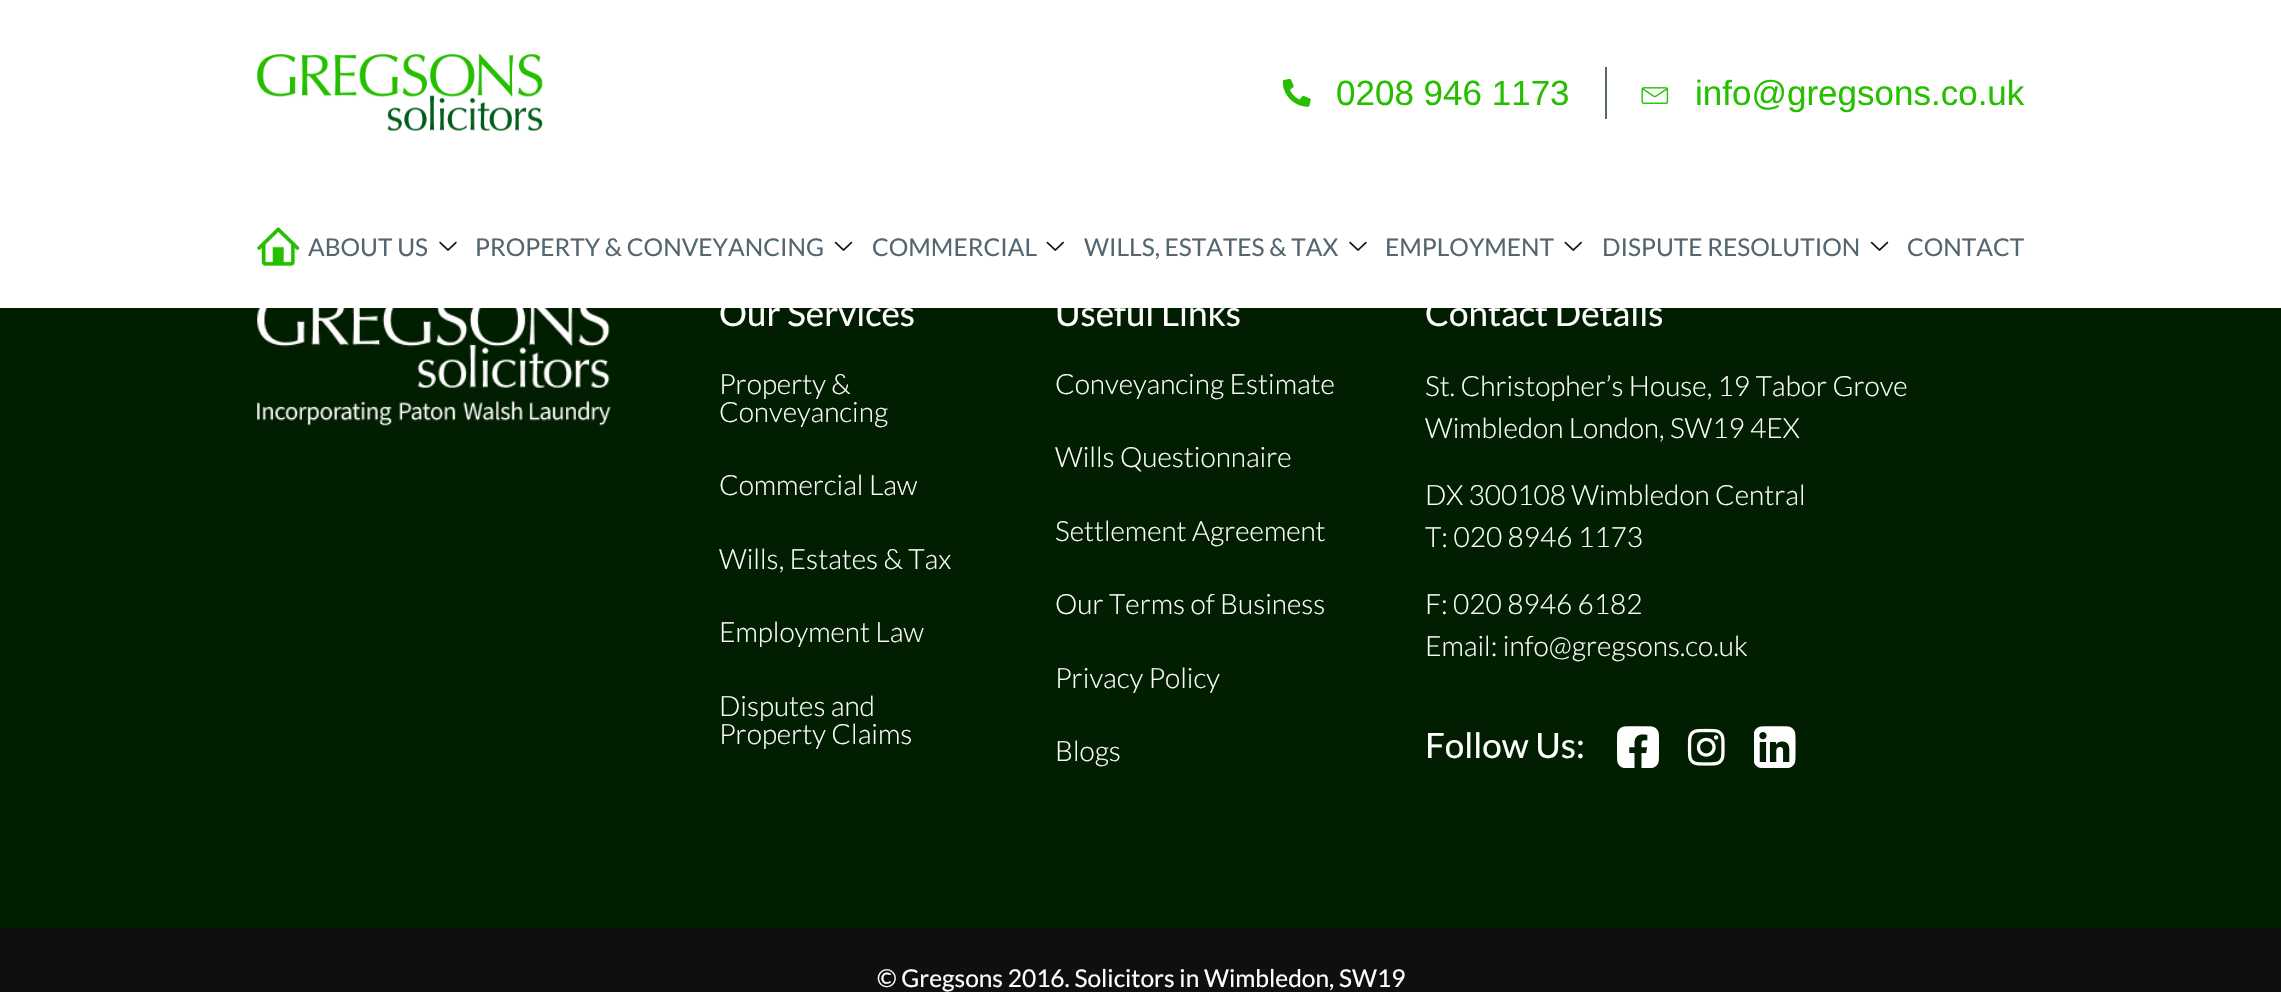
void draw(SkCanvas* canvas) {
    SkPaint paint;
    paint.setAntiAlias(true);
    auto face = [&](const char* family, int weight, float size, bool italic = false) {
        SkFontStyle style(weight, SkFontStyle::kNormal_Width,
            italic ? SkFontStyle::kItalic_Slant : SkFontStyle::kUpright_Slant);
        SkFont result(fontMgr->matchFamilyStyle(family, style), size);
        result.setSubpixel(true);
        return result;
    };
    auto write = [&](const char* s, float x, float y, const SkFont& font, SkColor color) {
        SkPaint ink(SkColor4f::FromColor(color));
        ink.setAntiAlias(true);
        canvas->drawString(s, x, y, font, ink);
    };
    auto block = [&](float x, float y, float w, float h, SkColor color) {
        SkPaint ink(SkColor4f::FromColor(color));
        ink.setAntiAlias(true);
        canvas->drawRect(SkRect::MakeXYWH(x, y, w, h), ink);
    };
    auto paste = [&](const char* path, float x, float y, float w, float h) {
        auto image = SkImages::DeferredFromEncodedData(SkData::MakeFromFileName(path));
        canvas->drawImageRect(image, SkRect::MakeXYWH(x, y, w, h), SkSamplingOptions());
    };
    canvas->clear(SkColorSetRGB(1, 31, 0));
    block(0, 0, 2281, 308, SK_ColorWHITE);
    paste("pic1.png", 257, 54, 286, 77);
    block(1605, 67, 2, 52, SkColorSetRGB(84, 102, 112));
    paste("pic2.png", 1283, 79, 28, 28);
    auto kFont1 = face("Liberation Sans", 400, 35);
    write("0208 946 1173", 1336, 105, kFont1, SkColorSetRGB(37, 191, 0));
    paste("pic3.png", 1641, 87, 28, 17);
    write("info@gregsons.co.uk", 1695, 105, kFont1, SkColorSetRGB(37, 191, 0));
    paste("pic4.png", 257, 227, 43, 39);
    auto kFont2 = face("Lato", 400, 24.5f);
    write("ABOUT US", 308, 256, kFont2, SkColorSetRGB(84, 102, 112));
    paste("pic5.png", 439, 241, 18, 10);
    write("PROPERTY & CONVEYANCING", 475, 256, kFont2, SkColorSetRGB(84, 102, 112));
    paste("pic6.png", 834, 241, 19, 10);
    write("COMMERCIAL", 872, 256, kFont2, SkColorSetRGB(84, 102, 112));
    paste("pic7.png", 1046, 241, 18, 10);
    write("WILLS, ESTATES & TAX", 1084, 256, kFont2, SkColorSetRGB(84, 102, 112));
    paste("pic5.png", 1349, 241, 18, 10);
    write("EMPLOYMENT", 1385, 256, kFont2, SkColorSetRGB(84, 102, 112));
    paste("pic7.png", 1564, 241, 18, 10);
    write("DISPUTE RESOLUTION", 1602, 256, kFont2, SkColorSetRGB(84, 102, 112));
    paste("pic6.png", 1870, 241, 19, 10);
    write("CONTACT", 1907, 256, kFont2, SkColorSetRGB(84, 102, 112));
    paste("pic8.png", 257, 308, 354, 118);
    auto kFont3 = face("Lato", 400, 35);
    write("Our Services", 719, 326, kFont3, SK_ColorWHITE);
    auto kFont4 = face("Lato", 300, 28);
    write("Property &", 719, 394, kFont4, SK_ColorWHITE);
    write("Conveyancing", 719, 422, kFont4, SK_ColorWHITE);
    write("Commercial Law", 719, 495, kFont4, SK_ColorWHITE);
    write("Wills, Estates & Tax", 719, 569, kFont4, SK_ColorWHITE);
    write("Employment Law", 719, 642, kFont4, SK_ColorWHITE);
    write("Disputes and", 719, 716, kFont4, SK_ColorWHITE);
    write("Property Claims", 719, 744, kFont4, SK_ColorWHITE);
    write("Useful Links", 1055, 326, kFont3, SK_ColorWHITE);
    write("Conveyancing Estimate", 1055, 394, kFont4, SK_ColorWHITE);
    write("Wills Questionnaire", 1055, 467, kFont4, SK_ColorWHITE);
    write("Settlement Agreement", 1055, 541, kFont4, SK_ColorWHITE);
    write("Our Terms of Business", 1055, 614, kFont4, SK_ColorWHITE);
    write("Privacy Policy", 1055, 688, kFont4, SK_ColorWHITE);
    write("Blogs", 1055, 761, kFont4, SK_ColorWHITE);
    write("Contact Details", 1425, 326, kFont3, SK_ColorWHITE);
    write("St. Christopher’s House, 19 Tabor Grove", 1425, 396, kFont4, SK_ColorWHITE);
    write("Wimbledon London, SW19 4EX", 1425, 438, kFont4, SK_ColorWHITE);
    write("DX 300108 Wimbledon Central", 1425, 505, kFont4, SK_ColorWHITE);
    write("T: 020 8946 1173", 1425, 547, kFont4, SK_ColorWHITE);
    write("F: 020 8946 6182", 1425, 614, kFont4, SK_ColorWHITE);
    write("Email: info@gregsons.co.uk", 1425, 656, kFont4, SK_ColorWHITE);
    write("Follow Us:", 1425, 758, kFont3, SK_ColorWHITE);
    paste("pic9.png", 1617, 726, 42, 42);
    paste("pic10.png", 1687, 728, 38, 38);
    paste("pic11.png", 1754, 726, 42, 42);
    block(0, 928, 2281, 64, SkColorSetRGB(15, 15, 15));
    write("© Gregsons 2016. Solicitors in Wimbledon, SW19", 877, 987, kFont2, SK_ColorWHITE);
}
